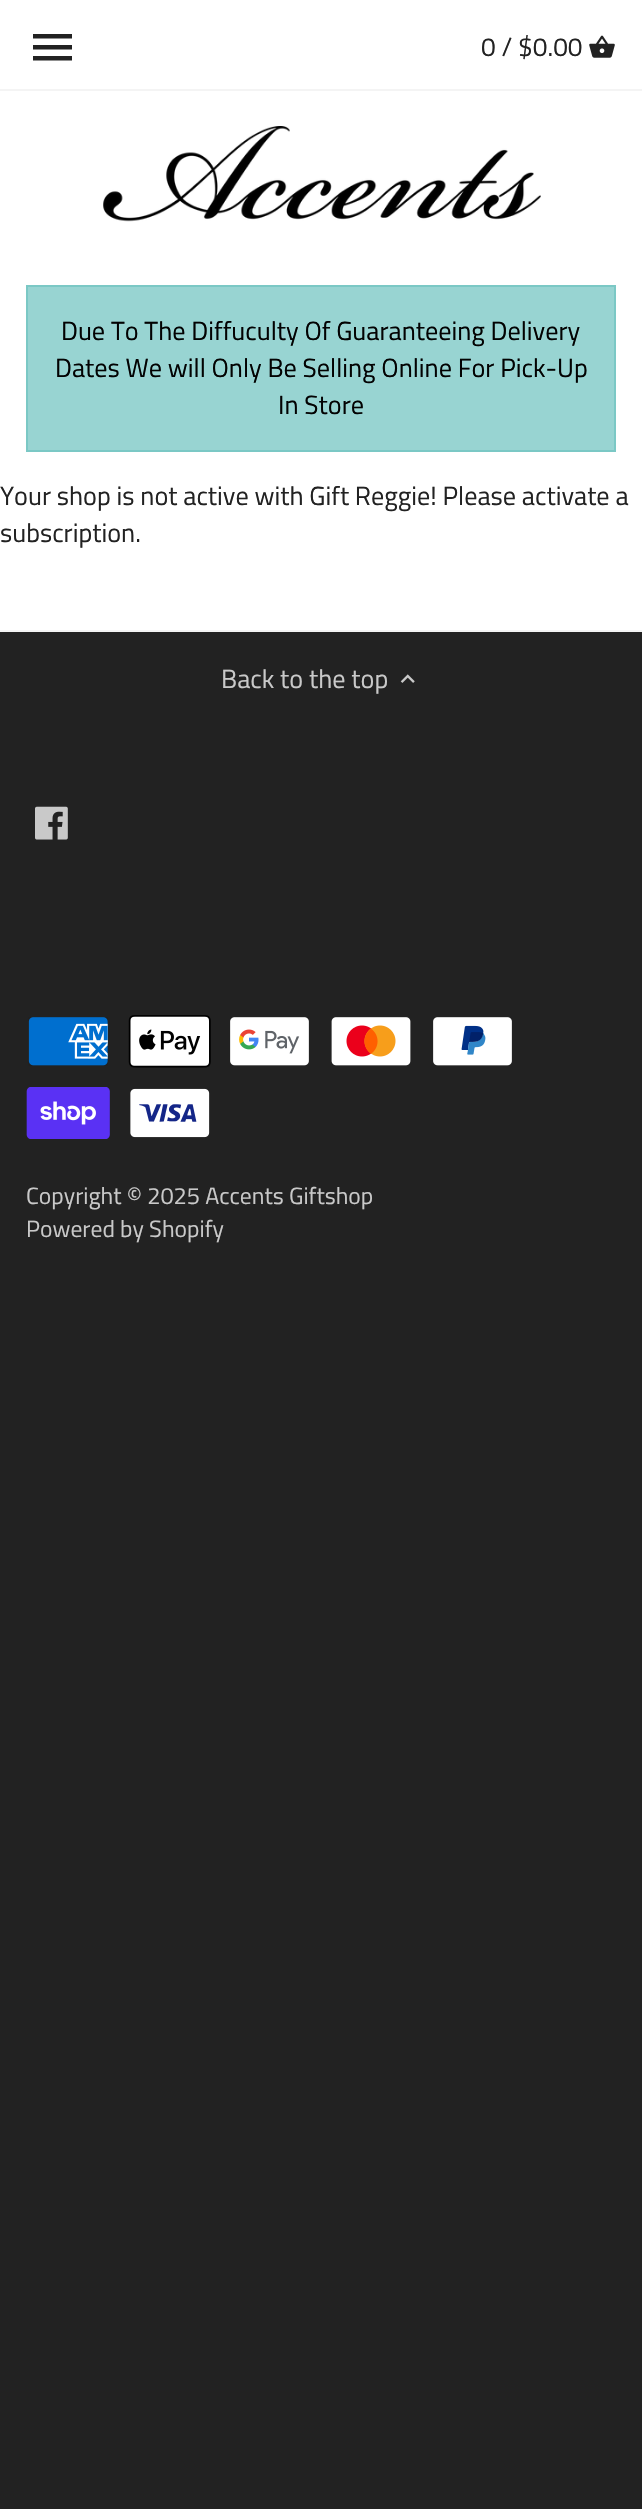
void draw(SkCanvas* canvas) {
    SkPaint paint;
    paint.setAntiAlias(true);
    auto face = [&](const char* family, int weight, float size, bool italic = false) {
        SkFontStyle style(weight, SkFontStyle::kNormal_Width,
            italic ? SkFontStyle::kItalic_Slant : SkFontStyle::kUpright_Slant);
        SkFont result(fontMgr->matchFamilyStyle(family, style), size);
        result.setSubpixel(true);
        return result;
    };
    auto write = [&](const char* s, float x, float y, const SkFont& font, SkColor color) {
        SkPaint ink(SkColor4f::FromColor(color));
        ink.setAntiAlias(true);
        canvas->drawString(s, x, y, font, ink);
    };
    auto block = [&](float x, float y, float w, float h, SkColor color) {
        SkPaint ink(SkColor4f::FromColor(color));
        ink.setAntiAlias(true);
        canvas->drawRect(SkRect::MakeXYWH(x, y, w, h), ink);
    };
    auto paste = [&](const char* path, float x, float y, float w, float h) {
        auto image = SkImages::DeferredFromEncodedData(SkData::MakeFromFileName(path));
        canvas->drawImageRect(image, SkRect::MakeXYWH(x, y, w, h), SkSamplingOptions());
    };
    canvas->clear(SkColorSetRGB(34, 34, 34));
    block(0, 0, 642, 630, SK_ColorWHITE);
    block(0, 89, 642, 2, SkColorSetRGB(244, 244, 244));
    paint.setColor(SkColorSetRGB(34, 34, 34));
    canvas->drawPath(SkPathBuilder().moveTo(33, 60.5f).lineTo(72, 60.5f).lineTo(72, 56).lineTo(33, 56).close().moveTo(33, 49.5f).lineTo(72, 49.5f).lineTo(72, 45).lineTo(33, 45).close().moveTo(33, 34).lineTo(33, 38.5f).lineTo(72, 38.5f).lineTo(72, 34).close().detach(), paint);
    auto kFont1 = face("Titillium Web", 400, 26.25f);
    write("0 / $0.00", 481, 56, kFont1, SkColorSetRGB(34, 34, 34));
    paste("pic1.png", 589, 35, 26, 23);
    paste("pic2.png", 103, 126, 438, 96);
    paint.setColor(SkColorSetRGB(152, 212, 210));
    canvas->drawRect(SkRect::MakeXYWH(27, 286, 588, 165), paint);
    paint.setStyle(SkPaint::kStroke_Style);
    paint.setStrokeWidth(2);
    paint.setColor(SkColorSetRGB(123, 200, 197));
    canvas->drawRect(SkRect::MakeXYWH(27, 286, 588, 165), paint);
    write("Due To The Diffuculty Of Guaranteeing Delivery", 61, 340, kFont1, SkColorSetRGB(2, 2, 2));
    write("Dates We will Only Be Selling Online For Pick-Up", 55, 377, kFont1, SkColorSetRGB(2, 2, 2));
    write("In Store", 278, 414, kFont1, SkColorSetRGB(2, 2, 2));
    write("Your shop is not active with Gift Reggie! Please activate a", 0, 505, kFont1, SkColorSetRGB(34, 34, 34));
    write("subscription.", 0, 542, kFont1, SkColorSetRGB(34, 34, 34));
    block(0, 630, 642, 2, SkColorSetRGB(244, 244, 244));
    write("Back to the top", 221, 688, kFont1, SkColorSetRGB(201, 201, 201));
    paste("pic3.png", 400, 674, 15, 9);
    paste("pic4.png", 35, 806, 33, 34);
    paste("pic5.png", 28, 1017, 80, 49);
    paste("pic6.png", 128, 1015, 83, 53);
    paste("pic7.png", 230, 1017, 79, 49);
    paste("pic8.png", 331, 1017, 80, 49);
    paste("pic9.png", 433, 1017, 79, 49);
    paste("pic10.png", 26, 1087, 84, 52);
    paste("pic11.png", 130, 1088, 80, 50);
    auto kFont2 = face("Titillium Web", 400, 23.6f);
    write("Copyright © 2025 Accents Giftshop", 26, 1204, kFont2, SkColorSetRGB(201, 201, 201));
    write("Powered by Shopify", 26, 1237, kFont2, SkColorSetRGB(201, 201, 201));
}
